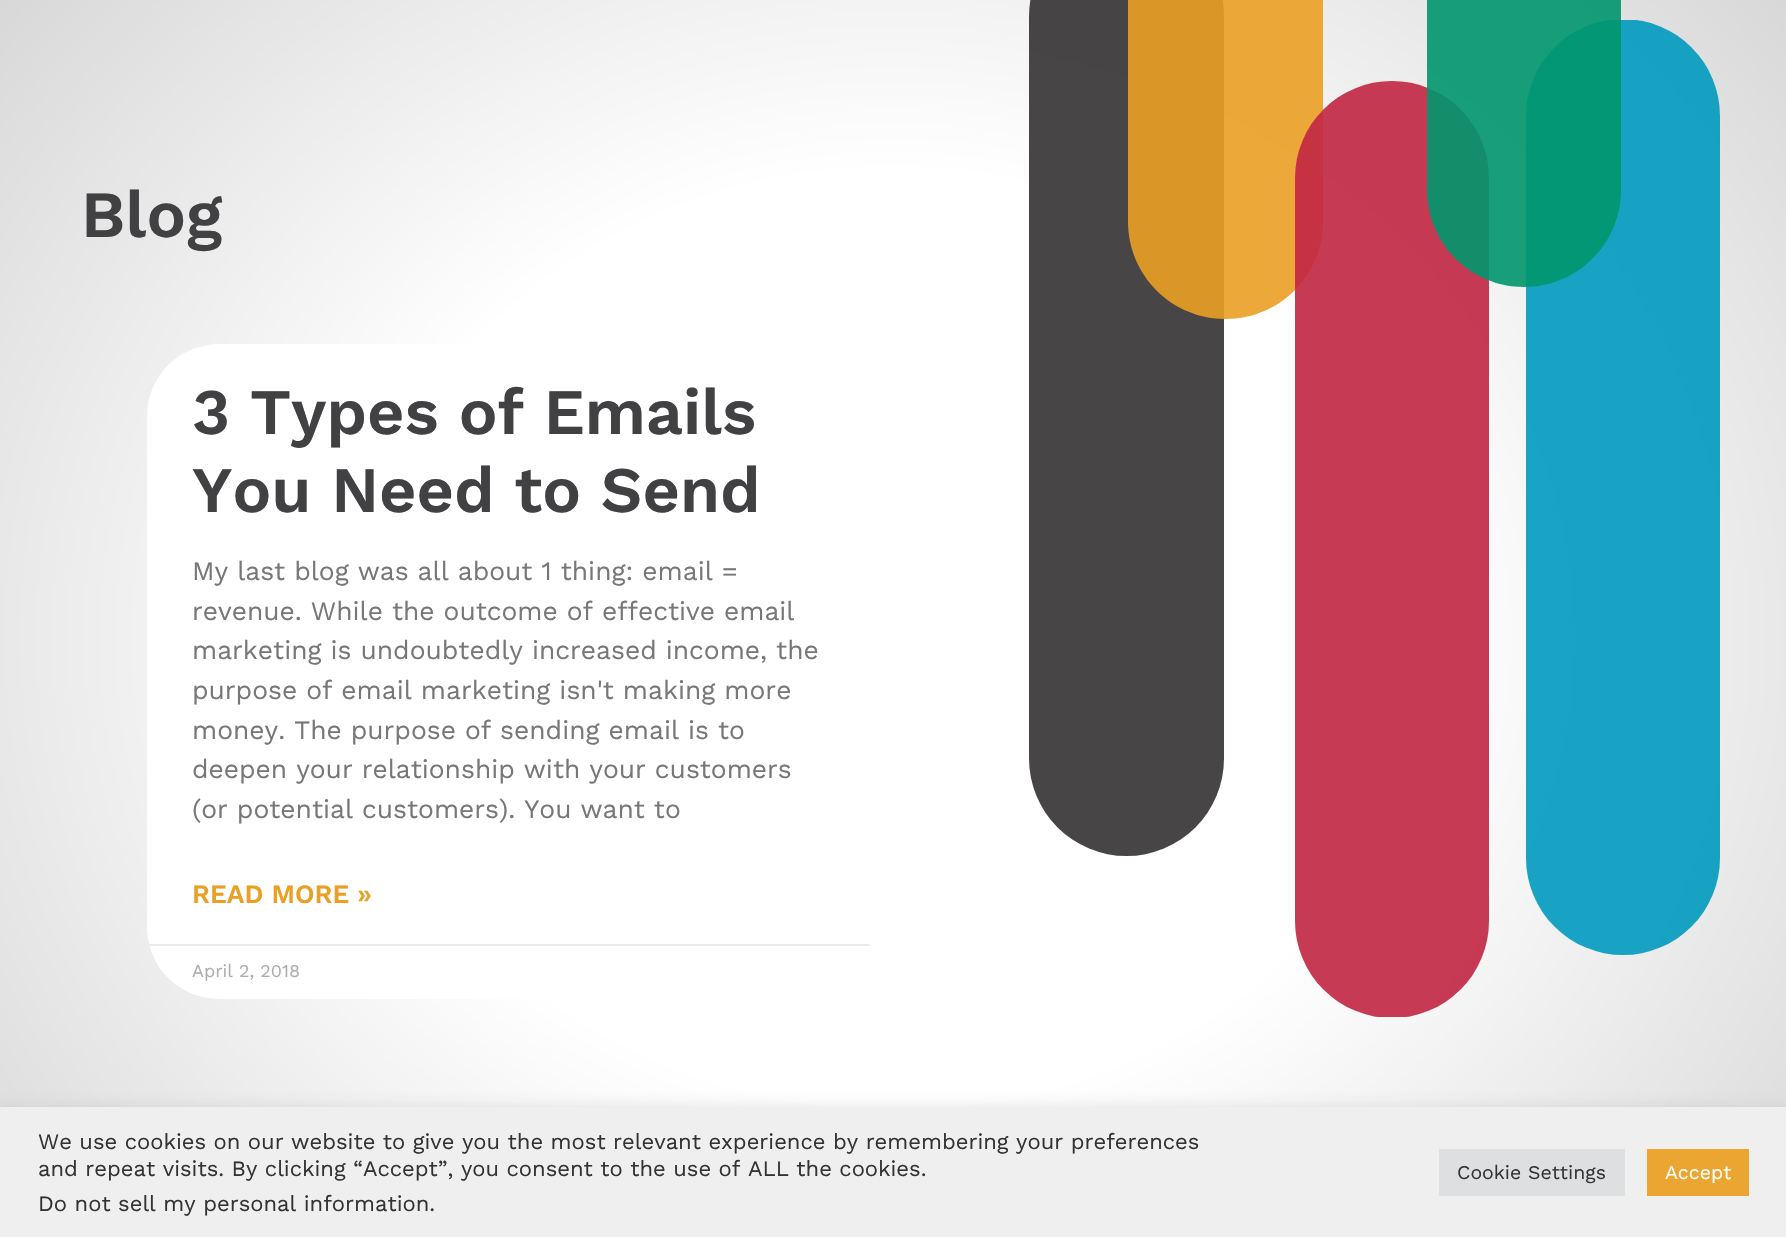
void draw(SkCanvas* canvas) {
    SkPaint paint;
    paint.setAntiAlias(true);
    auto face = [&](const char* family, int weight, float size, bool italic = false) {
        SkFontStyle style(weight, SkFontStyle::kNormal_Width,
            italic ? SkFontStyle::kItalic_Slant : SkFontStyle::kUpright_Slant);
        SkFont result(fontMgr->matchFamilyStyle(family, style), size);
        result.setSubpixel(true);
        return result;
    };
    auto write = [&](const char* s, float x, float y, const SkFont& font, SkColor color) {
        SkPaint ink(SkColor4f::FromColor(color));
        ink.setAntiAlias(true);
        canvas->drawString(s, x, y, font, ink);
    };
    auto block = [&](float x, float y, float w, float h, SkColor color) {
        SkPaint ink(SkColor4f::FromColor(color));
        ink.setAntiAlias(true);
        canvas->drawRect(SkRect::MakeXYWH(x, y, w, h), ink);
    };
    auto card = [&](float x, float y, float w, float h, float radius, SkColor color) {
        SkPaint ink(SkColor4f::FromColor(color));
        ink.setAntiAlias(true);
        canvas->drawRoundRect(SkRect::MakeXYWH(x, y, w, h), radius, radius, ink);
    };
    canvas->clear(SK_ColorWHITE);
    {
        const SkColor colors[] = {SK_ColorWHITE, SkColorSetRGB(209, 209, 209)};
        const float stops[] = {0.42f, 1};
        SkMatrix m = SkMatrix::Translate(893, 638).preScale(1263, 1108);
        paint.setShader(SkGradientShader::MakeRadial({0, 0}, 1, colors, stops, 2, SkTileMode::kClamp, 0, &m));
        paint.setAlpha(255);
    }
    canvas->drawRect(SkRect::MakeXYWH(0, 0, 1786, 1107), paint);
    auto kFont1 = face("Work Sans", 600, 66);
    write("Blog", 81, 237, kFont1, SkColorSetRGB(65, 64, 66));
    card(1029, -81, 195, 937, 97.5f, SkColorSetARGB(230, 51, 49, 50));
    paint.setShader(nullptr);
    paint.setColor(SkColorSetARGB(230, 234, 160, 37));
    canvas->drawPath(SkPathBuilder().moveTo(1128, -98).lineTo(1323, -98).lineTo(1323, 221.5f).cubicTo(1323, 275.5f, 1279.5f, 319, 1225.5f, 319).cubicTo(1171.5f, 319, 1128, 275.5f, 1128, 221.5f).close().detach(), paint);
    canvas->save();
    canvas->clipRect(SkRect::MakeXYWH(1295, 81, 195, 936));
    card(1295, 81, 194, 937, 97, SkColorSetARGB(230, 193, 37, 65));
    canvas->restore();
    canvas->save();
    canvas->clipRect(SkRect::MakeXYWH(1526, 20, 195, 936));
    card(1526, 19, 194, 936, 97, SkColorSetARGB(230, 0, 154, 192));
    canvas->restore();
    paint.setColor(SkColorSetARGB(230, 0, 150, 107));
    canvas->drawPath(SkPathBuilder().moveTo(1427, -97).lineTo(1621, -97).lineTo(1621, 190).cubicTo(1621, 243.5f, 1577.5f, 287, 1524, 287).cubicTo(1470.5f, 287, 1427, 243.5f, 1427, 190).close().detach(), paint);
    card(147, 344, 725, 655, 72, SK_ColorWHITE);
    auto kFont2 = face("Work Sans", 600, 64.75f);
    write("3 Types of Emails", 192, 434, kFont2, SkColorSetRGB(65, 64, 66));
    write("You Need to Send", 192, 512, kFont2, SkColorSetRGB(65, 64, 66));
    auto kFont3 = face("Work Sans", 400, 26.4f);
    write("My last blog was all about 1 thing: email =", 192, 580, kFont3, SkColorSetRGB(119, 119, 119));
    write("revenue. While the outcome of effective email", 192, 620, kFont3, SkColorSetRGB(119, 119, 119));
    write("marketing is undoubtedly increased income, the", 192, 659, kFont3, SkColorSetRGB(119, 119, 119));
    write("purpose of email marketing isn't making more", 192, 699, kFont3, SkColorSetRGB(119, 119, 119));
    write("money. The purpose of sending email is to", 192, 739, kFont3, SkColorSetRGB(119, 119, 119));
    write("deepen your relationship with your customers", 192, 778, kFont3, SkColorSetRGB(119, 119, 119));
    write("(or potential customers). You want to", 192, 818, kFont3, SkColorSetRGB(119, 119, 119));
    auto kFont4 = face("Work Sans", 600, 26.4f);
    write("READ MORE »", 192, 903, kFont4, SkColorSetRGB(233, 160, 37));
    canvas->save();
    canvas->clipPath(SkPathBuilder().moveTo(219, 344).lineTo(800, 344).cubicTo(840, 344, 872, 376, 872, 416).lineTo(872, 927).cubicTo(872, 967, 840, 999, 800, 999).lineTo(219, 999).cubicTo(179, 999, 147, 967, 147, 927).lineTo(147, 416).cubicTo(147, 376, 179, 344, 219, 344).close().detach(), true);
    block(147, 944, 725, 2, SkColorSetRGB(234, 234, 234));
    canvas->restore();
    auto kFont5 = face("Work Sans", 400, 18);
    write("April 2, 2018", 192, 977, kFont5, SkColorSetRGB(173, 173, 173));
    paint.setColor(SkColorSetARGB(77, 172, 171, 171));
    paint.setMaskFilter(SkMaskFilter::MakeBlur(kNormal_SkBlurStyle, 7.5f));
    canvas->drawRect(SkRect::MakeXYWH(0, 1106, 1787, 130), paint);
    paint.setMaskFilter(nullptr);
    block(0, 1107, 1786, 130, SkColorSetRGB(239, 239, 239));
    auto kFont6 = face("Work Sans", 400, 22);
    write("We use cookies on our website to give you the most relevant experience by remembering your preferences", 38, 1149, kFont6, SkColorSetRGB(51, 51, 51));
    write("and repeat visits. By clicking “Accept”, you consent to the use of ALL the cookies.", 38, 1176, kFont6, SkColorSetRGB(51, 51, 51));
    write("Do not sell my personal information.", 38, 1211, kFont6, SkColorSetRGB(51, 51, 51));
    block(1439, 1149, 186, 47, SkColorSetRGB(222, 223, 224));
    auto kFont7 = face("Work Sans", 400, 19.5f);
    write("Cookie Settings", 1457, 1179, kFont7, SkColorSetRGB(51, 51, 51));
    block(1647, 1149, 102, 47, SkColorSetRGB(235, 166, 49));
    write("Accept", 1665, 1179, kFont7, SK_ColorWHITE);
}
